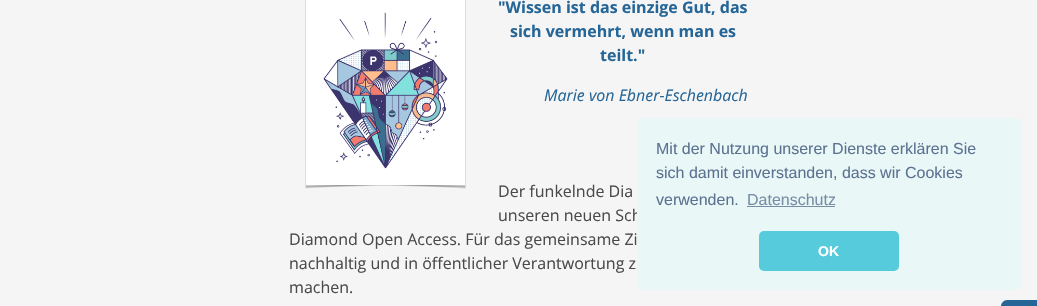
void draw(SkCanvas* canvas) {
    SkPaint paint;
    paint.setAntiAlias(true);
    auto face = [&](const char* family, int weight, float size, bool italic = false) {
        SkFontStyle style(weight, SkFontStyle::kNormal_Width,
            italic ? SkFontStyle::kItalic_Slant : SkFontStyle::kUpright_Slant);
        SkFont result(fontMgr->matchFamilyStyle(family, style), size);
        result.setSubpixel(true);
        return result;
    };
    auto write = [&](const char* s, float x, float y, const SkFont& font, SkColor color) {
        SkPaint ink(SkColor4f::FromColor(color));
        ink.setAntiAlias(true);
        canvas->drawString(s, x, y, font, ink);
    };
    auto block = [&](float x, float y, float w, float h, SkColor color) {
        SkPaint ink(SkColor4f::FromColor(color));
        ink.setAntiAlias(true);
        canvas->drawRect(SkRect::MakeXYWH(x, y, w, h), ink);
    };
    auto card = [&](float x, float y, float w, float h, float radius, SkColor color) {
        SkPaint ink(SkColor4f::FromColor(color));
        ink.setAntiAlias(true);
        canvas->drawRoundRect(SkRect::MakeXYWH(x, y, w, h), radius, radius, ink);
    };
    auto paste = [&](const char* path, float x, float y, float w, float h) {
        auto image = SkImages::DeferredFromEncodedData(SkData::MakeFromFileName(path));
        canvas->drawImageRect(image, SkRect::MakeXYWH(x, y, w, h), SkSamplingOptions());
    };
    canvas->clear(SkColorSetRGB(245, 245, 245));
    paste("pic1.png", 305, 0, 161, 189);
    auto kFont1 = face("Open Sans", 700, 16);
    write("\"Wissen ist das einzige Gut, das", 498, 13, kFont1, SkColorSetRGB(38, 102, 151));
    write("sich vermehrt, wenn man es", 510, 37, kFont1, SkColorSetRGB(38, 102, 151));
    write("teilt.\"", 600, 61, kFont1, SkColorSetRGB(38, 102, 151));
    auto kFont2 = face("Open Sans", 400, 16, true);
    write("Marie von Ebner-Eschenbach", 544, 101, kFont2, SkColorSetRGB(38, 102, 151));
    auto kFont3 = face("Open Sans", 400, 16);
    write("Der funkelnde Dia", 498, 197, kFont3, SkColorSetRGB(74, 74, 74));
    write("unseren neuen Sch", 498, 221, kFont3, SkColorSetRGB(74, 74, 74));
    write("Diamond Open Access. Für das gemeinsame Zi", 289, 245, kFont3, SkColorSetRGB(74, 74, 74));
    write("nachhaltig und in öffentlicher Verantwortung z", 289, 269, kFont3, SkColorSetRGB(74, 74, 74));
    write("machen.", 289, 293, kFont3, SkColorSetRGB(74, 74, 74));
    card(637, 118, 384, 172, 5, SkColorSetRGB(234, 247, 247));
    auto kFont4 = face("Liberation Sans", 400, 16);
    write("Mit der Nutzung unserer Dienste erklären Sie", 656, 154, kFont4, SkColorSetRGB(92, 114, 145));
    write("sich damit einverstanden, dass wir Cookies", 656, 178, kFont4, SkColorSetRGB(92, 114, 145));
    write("verwenden.", 656, 205, kFont4, SkColorSetRGB(92, 114, 145));
    write("Datenschutz", 747, 205, kFont4, SkColorSetRGB(120, 141, 165));
    block(747, 206, 88, 1, SkColorSetRGB(120, 141, 165));
    card(759, 231, 140, 40, 5, SkColorSetRGB(86, 203, 219));
    auto kFont5 = face("Liberation Sans", 700, 14);
    write("OK", 818, 256, kFont5, SK_ColorWHITE);
    paint.setColor(SkColorSetRGB(38, 102, 151));
    canvas->drawPath(SkPathBuilder().moveTo(1001, 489).lineTo(1001, 306).cubicTo(1001, 303, 1004, 300, 1007, 300).lineTo(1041, 300).lineTo(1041, 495).lineTo(1007, 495).cubicTo(1004, 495, 1001, 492, 1001, 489).close().detach(), paint);
}
